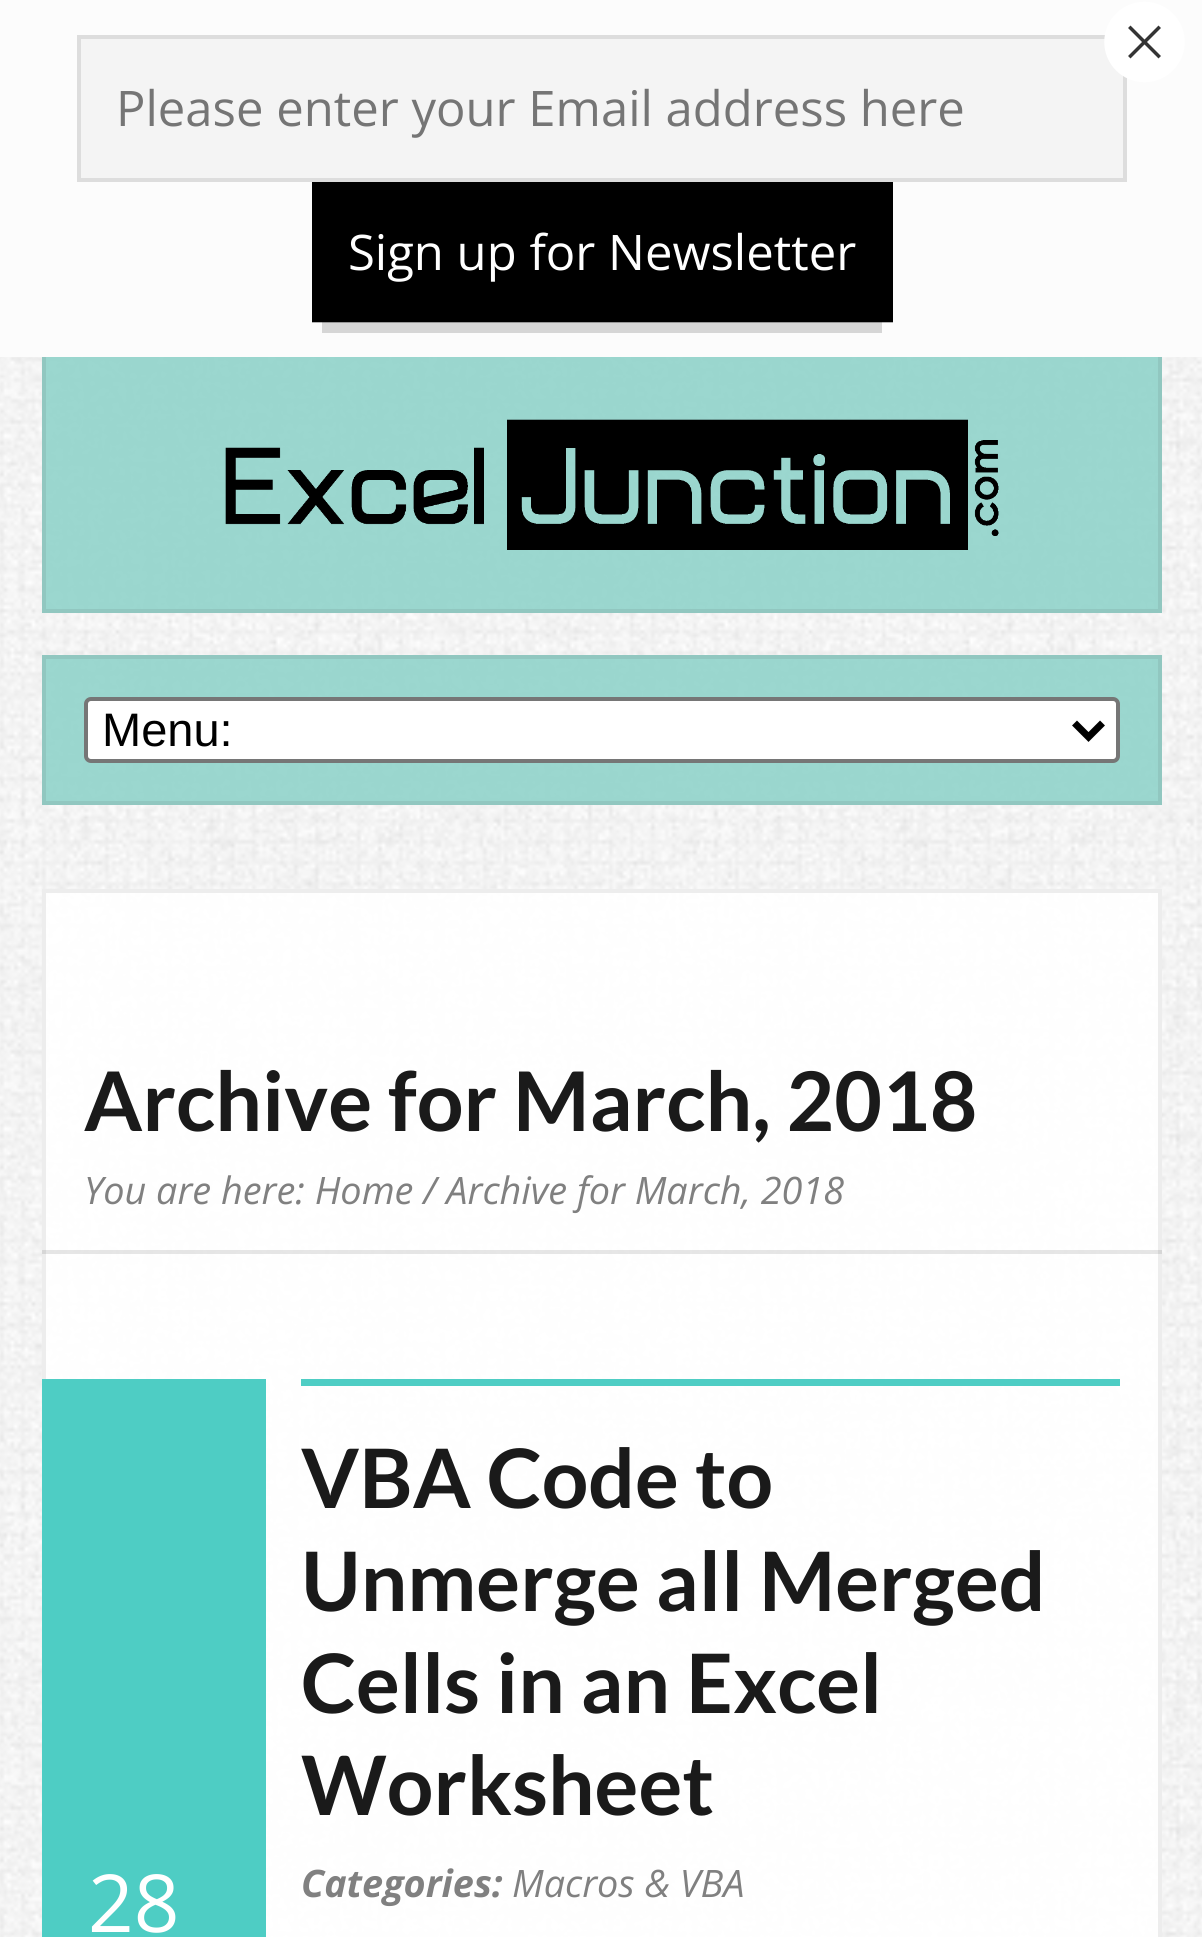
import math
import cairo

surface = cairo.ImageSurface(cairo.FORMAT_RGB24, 1202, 1937)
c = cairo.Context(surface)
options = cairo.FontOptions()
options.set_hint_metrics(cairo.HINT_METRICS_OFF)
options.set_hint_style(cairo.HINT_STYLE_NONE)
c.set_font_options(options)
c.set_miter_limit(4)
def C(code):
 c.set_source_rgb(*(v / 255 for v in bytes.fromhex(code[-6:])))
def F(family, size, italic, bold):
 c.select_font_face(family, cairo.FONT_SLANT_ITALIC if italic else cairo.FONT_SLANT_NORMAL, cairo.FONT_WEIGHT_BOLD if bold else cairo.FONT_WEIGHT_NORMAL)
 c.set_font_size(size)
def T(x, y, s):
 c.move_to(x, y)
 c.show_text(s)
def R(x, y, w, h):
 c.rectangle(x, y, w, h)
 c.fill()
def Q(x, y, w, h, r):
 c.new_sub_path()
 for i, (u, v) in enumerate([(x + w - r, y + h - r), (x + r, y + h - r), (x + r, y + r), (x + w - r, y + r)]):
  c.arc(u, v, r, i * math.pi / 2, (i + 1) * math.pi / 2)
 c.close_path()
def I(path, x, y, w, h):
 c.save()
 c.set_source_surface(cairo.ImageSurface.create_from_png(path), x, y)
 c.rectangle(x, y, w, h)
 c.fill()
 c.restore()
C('ffffff')
c.paint()
I('1.png',0,357,1202,1580)
c.set_source_rgba(0.592,0.835,0.804,0.95)
R(46,357,1112,252)
c.rectangle(44,265,1116,346)
C('91c7c0')
c.set_line_width(4)
c.stroke()
C('fcfcfc')
R(0,0,1202,357)
C('f4f4f4')
c.rectangle(79,37,1046,143)
c.fill_preserve()
C('dddddd')
c.stroke()
C('ffffff')
c.arc(1144.5,42,38.5,0,2 * math.pi)
c.fill_preserve()
c.set_line_width(3.5)
c.stroke()
c.new_path()
c.move_to(1158.5,28)
c.line_to(1130.5,56)
c.move_to(1158.5,56)
c.line_to(1130.5,28)
C('343434')
c.set_line_cap(cairo.LINE_CAP_SQUARE)
c.stroke()
F('Open Sans',49,0,0)
C('757575')
T(116,126,'Please enter your Email address here')
C('d6d6d6')
R(322,322,560,11)
C('000000')
R(312,182,581,140)
c.set_source_rgba(0,0,0,0.3)
R(312,322,581,1)
C('ffffff')
T(348,270,'Sign up for Newsletter')
I('2.png',225,419,774,131)
c.set_source_rgba(0.592,0.835,0.804,0.95)
c.rectangle(44,657,1116,146)
c.fill_preserve()
C('91c7c0')
c.set_line_width(4)
c.set_line_cap(cairo.LINE_CAP_BUTT)
c.stroke()
C('ffffff')
Q(86,699,1032,62,5)
c.fill_preserve()
C('767676')
c.stroke()
c.new_path()
c.move_to(1074.5,723)
c.line_to(1088.5,737)
c.line_to(1102.5,723)
C('000000')
c.set_line_width(7)
c.stroke()
F('Liberation Sans',47,0,0)
T(102,746,'Menu:')
c.set_source_rgba(1,1,1,0.95)
c.rectangle(44,891,1116,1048)
c.fill_preserve()
C('ededed')
c.set_line_width(4)
c.stroke()
F('Lato',82.25,0,1)
C('1a1a1a')
T(84,1131,'Archive for March, 2018')
F('Open Sans',37.8,1,0)
C('808080')
T(84,1204,'You are here: Home / Archive for March, 2018')
c.set_source_rgba(0,0,0,0.1)
R(42,1250,1120,4)
C('4ecdc4')
R(42,1379,224,558)
F('Open Sans',80,0,0)
C('ffffff')
T(88,1932,'28')
C('4ecdc4')
R(301,1379,819,7)
F('Lato',82,0,1)
C('1a1a1a')
T(301,1508,'VBA Code to')
T(301,1611,'Unmerge all Merged')
T(301,1713,'Cells in an Excel')
T(301,1815,'Worksheet')
F('Open Sans',37.8,1,1)
C('808080')
T(301,1897,'Categories:')
F('Open Sans',37.8,1,0)
T(512,1897,'Macros & VBA')
surface.write_to_png('o.png')
